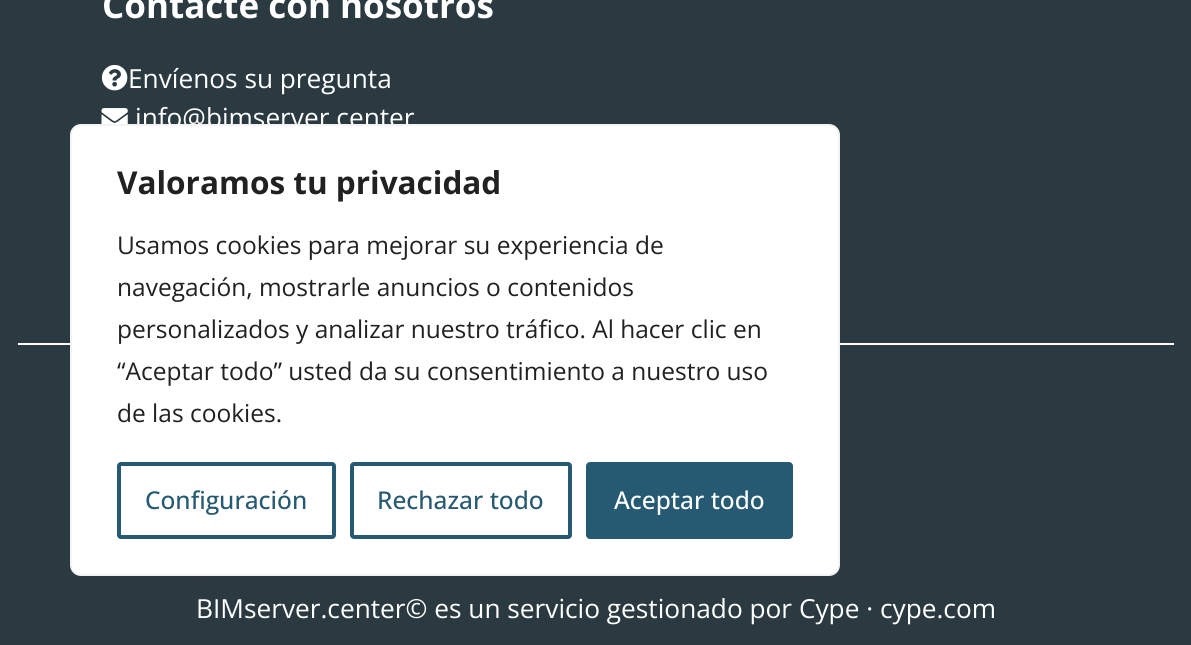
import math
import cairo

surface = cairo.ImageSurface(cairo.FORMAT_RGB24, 1191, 645)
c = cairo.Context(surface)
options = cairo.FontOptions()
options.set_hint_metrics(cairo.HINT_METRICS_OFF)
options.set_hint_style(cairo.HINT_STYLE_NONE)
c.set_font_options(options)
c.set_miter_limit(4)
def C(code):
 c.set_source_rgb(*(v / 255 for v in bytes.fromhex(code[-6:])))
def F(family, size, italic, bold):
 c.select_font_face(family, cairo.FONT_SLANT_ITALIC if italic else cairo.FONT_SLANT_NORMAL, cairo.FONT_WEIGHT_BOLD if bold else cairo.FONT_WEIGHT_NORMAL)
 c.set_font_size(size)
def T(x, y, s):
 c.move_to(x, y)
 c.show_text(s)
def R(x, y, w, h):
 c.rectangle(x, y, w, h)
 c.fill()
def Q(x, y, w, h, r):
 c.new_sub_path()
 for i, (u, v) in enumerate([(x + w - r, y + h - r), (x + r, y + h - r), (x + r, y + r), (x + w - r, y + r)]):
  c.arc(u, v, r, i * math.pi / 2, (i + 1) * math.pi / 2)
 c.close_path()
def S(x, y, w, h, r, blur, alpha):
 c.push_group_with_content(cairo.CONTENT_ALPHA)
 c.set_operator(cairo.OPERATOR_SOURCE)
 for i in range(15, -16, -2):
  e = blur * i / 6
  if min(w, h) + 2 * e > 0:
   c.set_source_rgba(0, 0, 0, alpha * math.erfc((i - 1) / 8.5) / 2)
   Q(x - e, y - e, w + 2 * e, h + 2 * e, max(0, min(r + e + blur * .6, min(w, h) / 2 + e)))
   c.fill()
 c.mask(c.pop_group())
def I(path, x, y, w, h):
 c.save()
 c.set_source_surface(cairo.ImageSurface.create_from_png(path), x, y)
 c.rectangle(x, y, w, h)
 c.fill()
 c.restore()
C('2a3a40')
c.paint()
F('Open Sans',35,0,1)
C('ffffff')
T(102,18,'Contacte con nosotros')
I('1.png',101,64,27,27)
F('Open Sans',26.25,0,0)
T(128,88,'Envíenos su pregunta')
I('2.png',101,108,27,16)
T(135,127,'info@bimserver.center')
R(18,343,1156,2)
T(196,618,'BIMserver.center© es un servicio gestionado por Cype · cype.com')
c.save()
Q(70,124,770,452,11)
c.clip()
C('acabab')
S(70,123,770,451,11,9,.3)
c.restore()
Q(71,125,768,450,10)
c.fill_preserve()
C('f4f4f4')
c.stroke()
F('Open Sans',31.5,0,1)
C('212121')
T(117,194,'Valoramos tu privacidad')
F('Open Sans',24.5,0,0)
T(117,254,'Usamos cookies para mejorar su experiencia de')
T(117,296,'navegación, mostrarle anuncios o contenidos')
T(117,338,'personalizados y analizar nuestro tráfico. Al hacer clic en')
T(117,380,'“Aceptar todo” usted da su consentimiento a nuestro uso')
T(117,422,'de las cookies.')
Q(119,464,215,73,2)
C('265972')
c.set_line_width(4)
c.stroke()
F('Open Sans Medium',24.5,0,0)
T(145,509,'Configuración')
Q(352,464,218,73,2)
c.stroke()
T(377,509,'Rechazar todo')
Q(588,464,203,73,2)
c.fill_preserve()
c.stroke()
C('ffffff')
T(614,509,'Aceptar todo')
surface.write_to_png('o.png')
